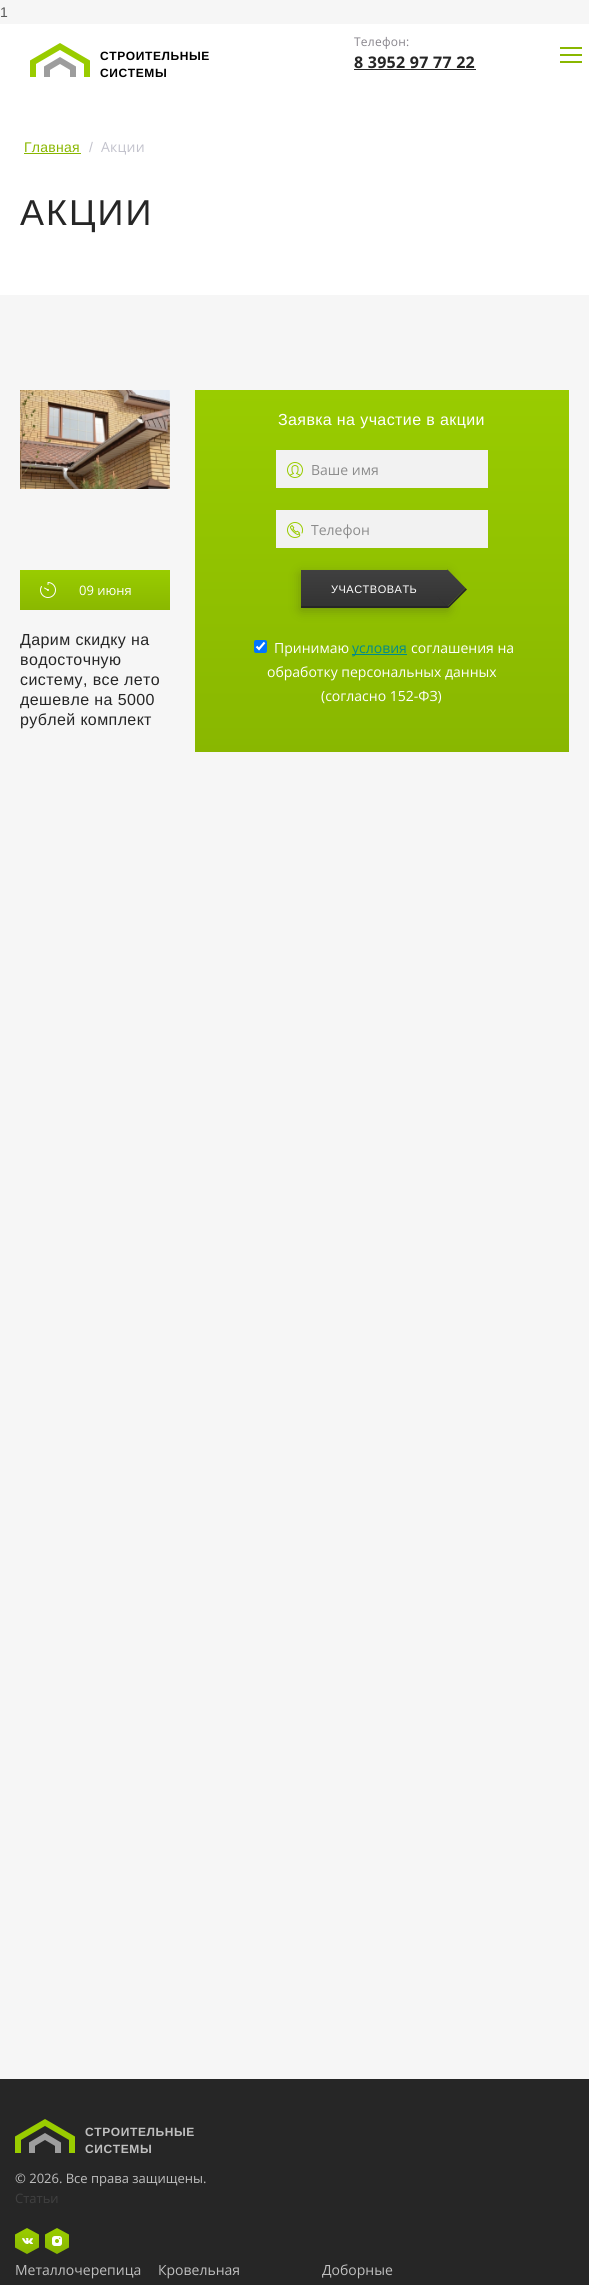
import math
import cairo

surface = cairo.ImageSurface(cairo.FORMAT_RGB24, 589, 2285)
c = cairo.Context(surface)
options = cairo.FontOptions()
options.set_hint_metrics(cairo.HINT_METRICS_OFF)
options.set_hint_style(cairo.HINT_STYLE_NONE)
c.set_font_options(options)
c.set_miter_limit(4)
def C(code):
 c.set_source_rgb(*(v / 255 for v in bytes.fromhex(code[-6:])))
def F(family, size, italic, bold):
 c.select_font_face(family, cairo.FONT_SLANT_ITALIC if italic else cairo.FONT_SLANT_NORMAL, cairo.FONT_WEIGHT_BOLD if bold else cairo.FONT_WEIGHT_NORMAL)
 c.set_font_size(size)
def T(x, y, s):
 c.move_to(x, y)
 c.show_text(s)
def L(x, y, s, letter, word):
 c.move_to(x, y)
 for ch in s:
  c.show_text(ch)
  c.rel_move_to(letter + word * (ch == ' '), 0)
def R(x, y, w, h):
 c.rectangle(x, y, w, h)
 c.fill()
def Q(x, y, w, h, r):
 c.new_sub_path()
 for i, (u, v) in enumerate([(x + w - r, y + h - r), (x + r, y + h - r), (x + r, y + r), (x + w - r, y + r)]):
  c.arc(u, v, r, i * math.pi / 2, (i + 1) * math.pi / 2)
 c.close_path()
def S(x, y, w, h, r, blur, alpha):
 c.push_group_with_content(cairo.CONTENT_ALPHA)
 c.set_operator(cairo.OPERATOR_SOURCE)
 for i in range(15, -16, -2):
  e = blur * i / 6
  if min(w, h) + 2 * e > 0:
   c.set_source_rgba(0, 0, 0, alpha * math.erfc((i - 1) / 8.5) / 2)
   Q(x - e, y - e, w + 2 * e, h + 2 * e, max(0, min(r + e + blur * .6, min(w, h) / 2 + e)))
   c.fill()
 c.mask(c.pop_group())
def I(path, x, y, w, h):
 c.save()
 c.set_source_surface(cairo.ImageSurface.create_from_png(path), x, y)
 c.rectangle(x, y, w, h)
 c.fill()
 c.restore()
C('f6f6f6')
c.paint()
F('Liberation Sans',14,0,0)
C('595959')
T(0,17,'1')
C('ffffff')
R(0,24,589,271)
I('1.png',30,43,60,34)
F('Liberation Sans',12,0,1)
C('000000')
L(100,60,'СТРОИТЕЛЬНЫЕ',.6,0)
L(100,77,'СИСТЕМЫ',.6,0)
F('Open Sans',12,0,0)
C('88858c')
L(354,46,'Телефон:',.25,0)
F('Open Sans',16,0,1)
C('262626')
L(354,68,'8 3952 97 77 22',.25,0)
R(354,69,122,1)
C('89b700')
R(560,47,22,2)
R(560,61,22,2)
R(560,54,22,2)
F('Liberation Sans',14,0,0)
L(24,152,'Главная',.25,0)
R(24,153,57,1)
C('c2c2cc')
L(89,152,'/',.25,0)
F('Open Sans',14,0,0)
L(101,152,'Акции',.25,0)
F('Liberation Sans',36,0,0)
C('262626')
L(20,225,'АКЦИИ',2,0)
I('2.png',20,390,150,99)
gradient = cairo.LinearGradient(95,570,95,610)
gradient.add_color_stop_rgba(0,0.6,0.8,0,1)
gradient.add_color_stop_rgba(1,0.541,0.722,0,1)
c.set_source(gradient)
R(20,570,150,40)
I('3.png',40,582,16,16)
F('Open Sans',13,0,0)
C('ffffff')
T(79,595,'09 июня')
F('Liberation Sans',16,0,0)
C('262626')
L(20,645,'Дарим скидку на',.4,0)
L(20,665,'водосточную',.4,0)
L(20,685,'систему, все лето',.4,0)
L(20,705,'дешевле на 5000',.4,0)
L(20,725,'рублей комплект',.4,0)
gradient = cairo.LinearGradient(382,390,382,752)
gradient.add_color_stop_rgba(0,0.6,0.8,0,1)
gradient.add_color_stop_rgba(1,0.537,0.718,0,1)
c.set_source(gradient)
R(195,390,374,362)
C('ffffff')
L(278,425,'Заявка на участие в акции',.4,0)
C('f2f2f2')
R(276,450,212,38)
I('4.png',287,462,16,16)
F('Open Sans',14,0,0)
C('8c8c8c')
T(311,475,'Ваше имя')
C('f2f2f2')
R(276,510,212,38)
I('5.png',287,522,16,16)
C('8c8c8c')
T(311,535,'Телефон')
C('262626')
R(301,606,147,2)
C('262626')
S(301,574,147,36,0,6,.3)
gradient = cairo.LinearGradient(375,570,375,606)
gradient.add_color_stop_rgba(0,0.251,0.251,0.251,1)
gradient.add_color_stop_rgba(1,0.2,0.2,0.2,1)
c.set_source(gradient)
R(301,570,146,36)
F('Liberation Sans',11,0,0)
C('ffffff')
L(331,593,'УЧАСТВОВАТЬ',.5,0)
C('262626')
c.new_path()
c.move_to(435,594)
c.line_to(448.5,608)
c.line_to(467,589.5)
c.line_to(465.5,588)
c.line_to(447.5,606.5)
c.close_path()
c.fill()
gradient = cairo.LinearGradient(447,570,447,606)
gradient.add_color_stop_rgba(0,0.251,0.251,0.251,1)
gradient.add_color_stop_rgba(1,0.2,0.2,0.2,1)
c.set_source(gradient)
c.new_path()
c.move_to(429,588)
c.line_to(447.5,569.5)
c.line_to(465.5,588)
c.line_to(447.5,606.5)
c.close_path()
c.fill()
C('0075ff')
Q(254,640,13,13,2)
c.fill()
c.new_path()
c.move_to(256.5,646.5)
c.line_to(259,649)
c.line_to(264.5,642.5)
C('ffffff')
c.set_line_width(2.1)
c.stroke()
F('Open Sans',14,0,0)
T(274,653,'Принимаю')
C('008b8b')
R(352,654,55,1)
T(352,653,'условия')
C('ffffff')
T(411,653,'соглашения на')
T(267,677,'обработку персональных данных')
T(321,701,'(согласно 152-ФЗ)')
C('262626')
R(0,2079,589,206)
I('6.png',15,2119,60,34)
F('Liberation Sans',12,0,1)
C('bfbfbf')
L(85,2136,'СТРОИТЕЛЬНЫЕ',.6,0)
L(85,2153,'СИСТЕМЫ',.6,0)
F('Open Sans',13,0,0)
T(15,2183,'© 2026. Все права защищены.')
C('404040')
T(15,2203,'Статьи')
I('7.png',15,2228,24,26)
I('8.png',22,2238,11,6)
I('7.png',45,2228,24,26)
I('9.png',52,2236,10,10)
F('Open Sans',14,0,0)
C('bfbfbf')
T(15,2275,'Металлочерепица')
T(158,2275,'Кровельная')
T(322,2275,'Доборные')
surface.write_to_png('o.png')
